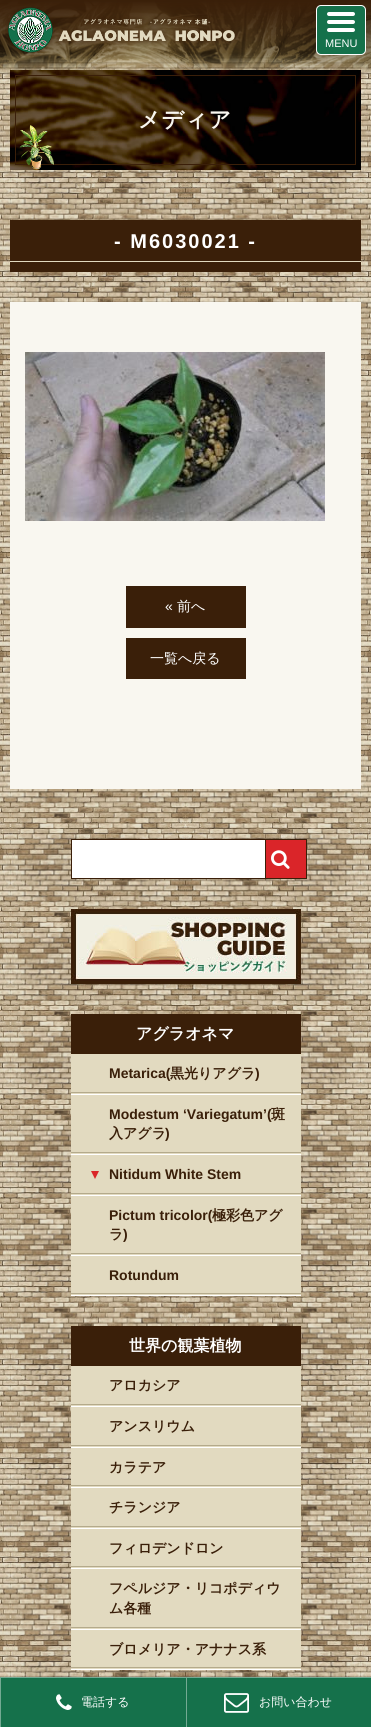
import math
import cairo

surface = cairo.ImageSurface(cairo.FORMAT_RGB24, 371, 1727)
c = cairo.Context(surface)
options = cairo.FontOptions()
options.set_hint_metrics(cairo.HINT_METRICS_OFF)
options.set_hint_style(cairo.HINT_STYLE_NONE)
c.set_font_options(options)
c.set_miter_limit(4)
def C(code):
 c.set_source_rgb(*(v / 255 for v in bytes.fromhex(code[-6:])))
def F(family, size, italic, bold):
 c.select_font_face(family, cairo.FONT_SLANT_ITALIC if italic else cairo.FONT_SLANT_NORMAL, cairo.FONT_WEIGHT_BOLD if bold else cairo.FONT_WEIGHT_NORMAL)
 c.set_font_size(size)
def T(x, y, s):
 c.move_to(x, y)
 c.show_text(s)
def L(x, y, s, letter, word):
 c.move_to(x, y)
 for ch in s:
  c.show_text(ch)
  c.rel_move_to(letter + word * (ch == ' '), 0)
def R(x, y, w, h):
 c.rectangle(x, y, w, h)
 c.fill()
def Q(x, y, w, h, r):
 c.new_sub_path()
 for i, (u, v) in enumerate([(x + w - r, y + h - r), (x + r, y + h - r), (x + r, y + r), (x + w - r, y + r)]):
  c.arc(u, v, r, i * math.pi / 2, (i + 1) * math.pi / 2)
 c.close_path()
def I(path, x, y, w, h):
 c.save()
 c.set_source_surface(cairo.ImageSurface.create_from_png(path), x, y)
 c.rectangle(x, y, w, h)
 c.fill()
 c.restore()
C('ffffff')
c.paint()
I('1.png',0,54,371,1623)
I('3.png',0,0,371,73)
gradient = cairo.LinearGradient(186,0,186,60)
gradient.add_color_stop_rgba(0,0.227,0.122,0.035,1)
gradient.add_color_stop_rgba(1,0.227,0.122,0.035,0)
c.set_source(gradient)
R(0,0,371,59)
C('15714b')
Q(316.5,5.5,49,49,4.5)
c.fill_preserve()
C('ffffff')
c.set_line_width(1)
c.stroke()
Q(327,12,28,4,2)
c.fill()
Q(327,20,28,4,2)
c.fill()
Q(327,28,28,4,2)
c.fill()
F('Liberation Sans',11,0,0)
T(325,47,'MENU')
I('2.png',5,7,233,50)
I('4.png',10,70,351,100)
c.rectangle(15.5,75.5,340,89)
C('3a1f09')
c.stroke()
F('WenQuanYi Zen Hei',22,0,1)
C('f9f7f0')
L(138,127,'メディア',1,0)
I('5.png',14,125,40,45)
C('3a1f09')
R(10,220,351,52)
F('Liberation Sans',20,0,1)
C('ffffff')
L(114,248,'- M6030021 -',2,0)
C('e2dac0')
R(10,261,351,1)
C('f9f7f0')
R(10,302,351,487)
I('6.png',25,352,300,169)
C('3a1f09')
R(126,586,120,42)
F('Liberation Sans',14,0,0)
C('ffffff')
T(165,611,'«')
F('WenQuanYi Zen Hei Medium',14,0,0)
T(177,611,'前へ')
C('3a1f09')
R(126,638,120,41)
C('ffffff')
T(150,663,'一覧へ戻る')
R(72,840,193,38)
C('3a1f09')
R(71,839,194,1)
R(71,878,194,1)
R(71,839,1,40)
C('da2529')
c.rectangle(265.5,839.5,41,39)
c.fill_preserve()
C('3a1f09')
c.stroke()
I('7.png',271,850,19,19)
I('8.png',71,909,230,75)
R(71,1014,230,40)
F('WenQuanYi Zen Hei',16,0,1)
C('ffffff')
T(136,1039,'アグラオネマ')
C('e2dac0')
R(71,1054,230,40)
C('ffffff')
R(71,1094,230,1)
F('Liberation Sans',14,0,1)
C('3a1f09')
T(109,1078,'Metarica(')
F('WenQuanYi Zen Hei',14,0,1)
T(170,1078,'黒光りアグラ')
F('Liberation Sans',14,0,1)
T(255,1078,')')
C('b4aa8b')
R(71,1092,230,1)
C('e2dac0')
R(71,1095,230,59)
C('ffffff')
R(71,1154,230,1)
C('3a1f09')
T(109,1119,'Modestum ‘Variegatum’(')
F('WenQuanYi Zen Hei',14,0,1)
T(271,1119,'斑')
T(109,1138,'入アグラ')
F('Liberation Sans',14,0,1)
T(165,1138,')')
C('b4aa8b')
R(71,1152,230,1)
C('e2dac0')
R(71,1155,230,40)
C('ffffff')
R(71,1195,230,1)
C('da2528')
c.new_path()
c.move_to(91,1171)
c.line_to(99,1171)
c.line_to(95,1179)
c.close_path()
c.fill()
C('3a1f09')
T(109,1179,'Nitidum White Stem')
C('b4aa8b')
R(71,1193,230,1)
C('e2dac0')
R(71,1196,230,59)
C('ffffff')
R(71,1255,230,1)
C('3a1f09')
T(109,1220,'Pictum tricolor(')
F('WenQuanYi Zen Hei',14,0,1)
T(212,1220,'極彩色アグ')
T(109,1239,'ラ')
F('Liberation Sans',14,0,1)
T(123,1239,')')
C('b4aa8b')
R(71,1253,230,1)
C('e2dac0')
R(71,1256,230,39)
C('ffffff')
R(71,1295,230,1)
C('3a1f09')
T(109,1280,'Rotundum')
C('b4aa8b')
R(71,1293,230,1)
C('3a1f09')
R(71,1326,230,40)
F('WenQuanYi Zen Hei',16,0,1)
C('ffffff')
T(129,1351,'世界の観葉植物')
C('e2dac0')
R(71,1366,230,40)
C('ffffff')
R(71,1406,230,1)
F('WenQuanYi Zen Hei',14,0,1)
C('3a1f09')
T(109,1390,'アロカシア')
C('b4aa8b')
R(71,1404,230,1)
C('e2dac0')
R(71,1407,230,40)
C('ffffff')
R(71,1447,230,1)
C('3a1f09')
T(109,1431,'アンスリウム')
C('b4aa8b')
R(71,1445,230,1)
C('e2dac0')
R(71,1448,230,39)
C('ffffff')
R(71,1487,230,1)
C('3a1f09')
T(109,1472,'カラテア')
C('b4aa8b')
R(71,1485,230,1)
C('e2dac0')
R(71,1488,230,40)
C('ffffff')
R(71,1528,230,1)
C('3a1f09')
T(109,1512,'チランジア')
C('b4aa8b')
R(71,1526,230,1)
C('e2dac0')
R(71,1529,230,39)
C('ffffff')
R(71,1568,230,1)
C('3a1f09')
T(109,1553,'フィロデンドロン')
C('b4aa8b')
R(71,1566,230,1)
C('e2dac0')
R(71,1569,230,60)
C('ffffff')
R(71,1629,230,1)
C('3a1f09')
T(109,1593,'フペルジア・リコポディウ')
T(109,1613,'ム各種')
C('b4aa8b')
R(71,1627,230,1)
C('e2dac0')
R(71,1630,230,39)
C('ffffff')
R(71,1669,230,1)
C('3a1f09')
T(109,1654,'ブロメリア・アナナス系')
C('b4aa8b')
R(71,1667,230,1)
C('15714b')
R(1,1678,370,49)
c.save()
c.rectangle(0,1677,186,50)
c.clip()
C('73aa93')
c.set_fill_rule(cairo.FILL_RULE_EVEN_ODD)
c.new_path()
c.move_to(-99,1578)
c.line_to(285,1578)
c.line_to(285,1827)
c.line_to(-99,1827)
c.close_path()
c.move_to(1,1678)
c.line_to(187,1678)
c.line_to(187,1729)
c.line_to(1,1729)
c.close_path()
c.fill()
c.restore()
I('9.png',56,1694,16,16)
F('WenQuanYi Zen Hei Medium',12,0,0)
C('ffffff')
T(81,1706,'電話する')
c.save()
c.rectangle(186,1677,185,50)
c.clip()
C('73aa93')
c.set_fill_rule(cairo.FILL_RULE_EVEN_ODD)
c.new_path()
c.move_to(87,1578)
c.line_to(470,1578)
c.line_to(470,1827)
c.line_to(87,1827)
c.close_path()
c.move_to(187,1678)
c.line_to(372,1678)
c.line_to(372,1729)
c.line_to(187,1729)
c.close_path()
c.fill()
c.restore()
I('10.png',224,1693,25,20)
T(259,1706,'お問い合わせ')
surface.write_to_png('o.png')
